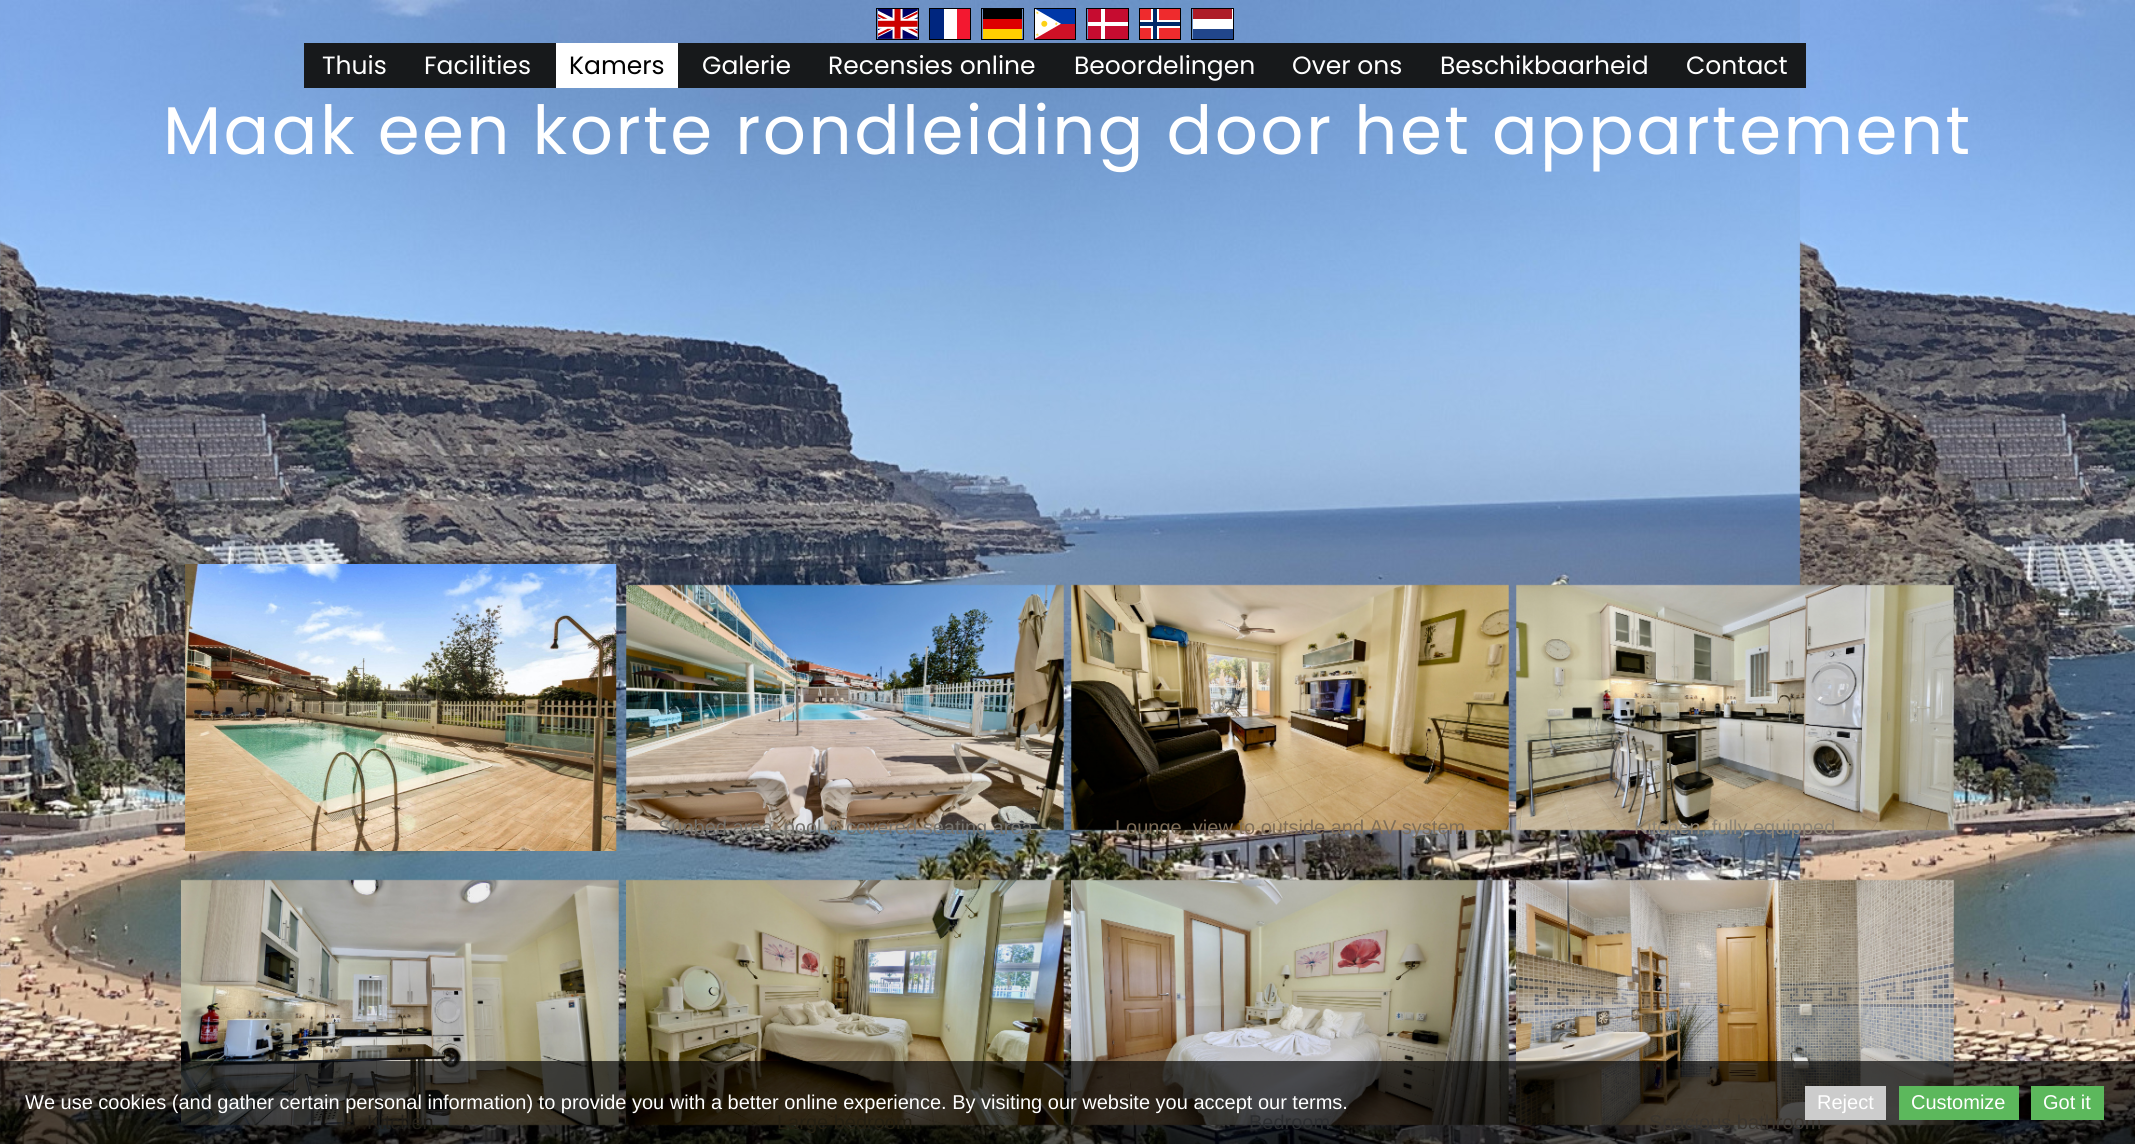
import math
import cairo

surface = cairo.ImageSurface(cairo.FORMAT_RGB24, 2135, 1144)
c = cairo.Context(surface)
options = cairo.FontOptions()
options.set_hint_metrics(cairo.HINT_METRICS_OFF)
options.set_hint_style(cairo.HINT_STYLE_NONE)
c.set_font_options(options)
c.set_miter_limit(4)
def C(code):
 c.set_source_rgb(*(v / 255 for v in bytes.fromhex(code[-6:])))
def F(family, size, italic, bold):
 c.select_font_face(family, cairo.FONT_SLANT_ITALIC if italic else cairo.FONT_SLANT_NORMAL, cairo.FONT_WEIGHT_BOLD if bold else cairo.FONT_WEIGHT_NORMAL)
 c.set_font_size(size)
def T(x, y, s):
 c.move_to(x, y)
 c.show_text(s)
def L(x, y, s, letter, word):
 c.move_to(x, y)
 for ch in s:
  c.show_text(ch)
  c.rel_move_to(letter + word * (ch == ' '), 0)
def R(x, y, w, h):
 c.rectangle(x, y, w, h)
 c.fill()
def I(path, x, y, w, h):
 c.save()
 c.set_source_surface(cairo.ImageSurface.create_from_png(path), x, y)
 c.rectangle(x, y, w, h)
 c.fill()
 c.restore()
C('ffffff')
c.paint()
I('1.png',0,0,2135,1144)
I('2.png',878,9,40,30)
c.rectangle(876.5,8.5,42,31)
C('000000')
c.set_line_width(1)
c.stroke()
C('ffffff')
R(944,9,13,30)
C('00267f')
R(930,9,14,30)
C('f31830')
R(957,9,13,30)
c.rectangle(929.5,8.5,41,31)
C('000000')
c.stroke()
C('ffce00')
R(983,29,39,10)
C('000000')
R(983,9,39,10)
C('dd0000')
R(983,19,39,10)
c.rectangle(981.5,8.5,42,31)
C('000000')
c.stroke()
I('3.png',1035,9,40,30)
c.rectangle(1034.5,8.5,41,31)
c.stroke()
C('c60c30')
R(1088,9,40,30)
C('ffffff')
R(1101,9,4,30)
R(1088,22,40,4)
c.rectangle(1086.5,8.5,42,31)
C('000000')
c.stroke()
C('ef2b2d')
R(1140,9,40,30)
C('ffffff')
R(1151,9,8,30)
R(1140,20,40,8)
C('002868')
R(1153,9,4,30)
R(1140,22,40,4)
c.rectangle(1139.5,8.5,41,31)
C('000000')
c.stroke()
C('ffffff')
R(1193,9,40,20)
C('21468b')
R(1193,29,40,10)
C('ae1c28')
R(1193,9,39,10)
c.rectangle(1191.5,8.5,42,31)
C('000000')
c.stroke()
C('17191b')
R(304,43,1502,45)
F('Poppins',25,0,0)
C('ffffff')
T(322,74,'Thuis')
T(424,74,'Facilities')
R(556,43,122,45)
C('000000')
T(569,74,'Kamers')
C('ffffff')
T(702,74,'Galerie')
T(828,74,'Recensies online')
T(1074,74,'Beoordelingen')
T(1292,74,'Over ons')
T(1440,74,'Beschikbaarheid')
T(1686,74,'Contact')
F('Poppins',67.5,0,0)
L(163,154,'Maak een korte rondleiding door het appartement',2.5,0)
I('4.png',185,564,432,287)
I('5.png',626,584,438,247)
F('Liberation Sans',20,0,0)
C('75736e')
T(658,834,'Sunbed area, pool & covered seating area')
I('6.png',1071,584,438,247)
C('7f6e58')
T(1115,834,'Lounge, view to outside and AV system')
I('7.png',1516,584,438,247)
C('8c8476')
T(1634,834,'Kitchen, fully equipped')
I('8.png',181,879,438,247)
C('605848')
T(367,1129,'Kitchen')
I('9.png',626,879,438,247)
C('695a35')
T(777,1129,'Large bedroom')
I('10.png',1071,879,438,247)
C('7f838c')
T(1249,1129,'Bedroom')
I('11.png',1516,879,438,247)
C('ab9c89')
T(1649,1129,'Spacious bathroom')
c.set_source_rgba(0,0,0,0.66)
R(0,1061,2135,83)
C('ffffff')
T(25,1109,'We use cookies (and gather certain personal information) to provide you with a better online experience. By visiting our website you accept our terms.')
C('cccccc')
R(1805,1086,81,34)
C('ffffff')
T(1817,1109,'Reject')
C('5cb85c')
R(1899,1086,120,34)
C('ffffff')
T(1911,1109,'Customize')
C('5cb85c')
R(2031,1086,73,34)
C('ffffff')
T(2043,1109,'Got it')
surface.write_to_png('o.png')
